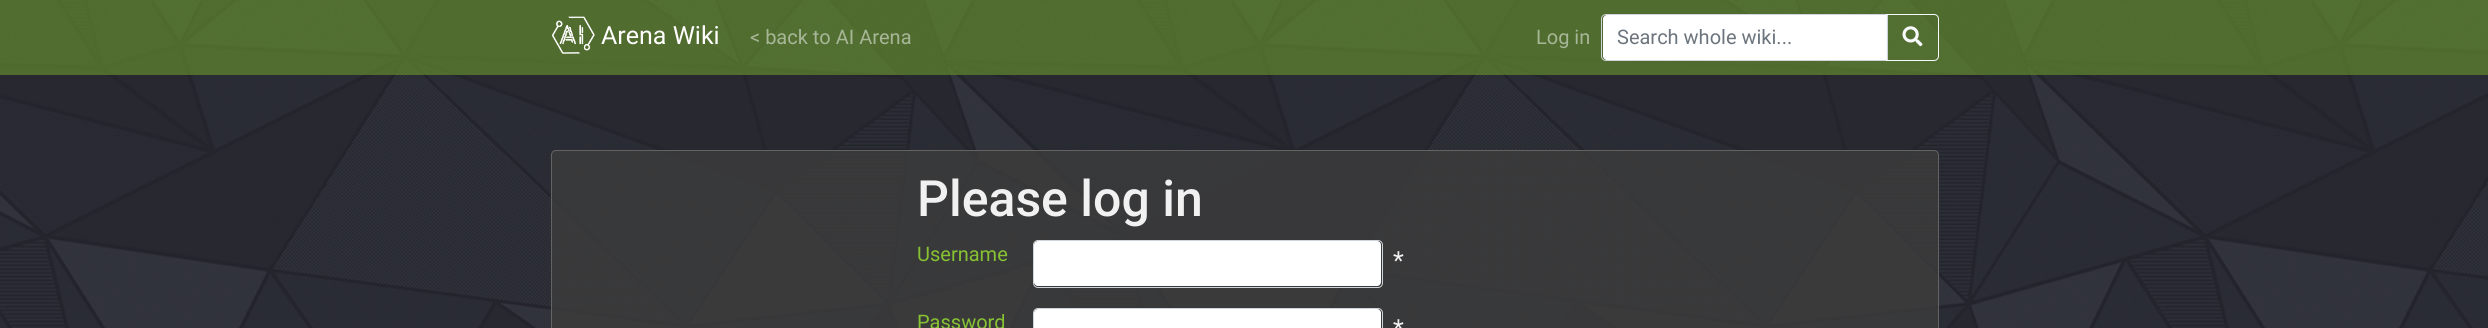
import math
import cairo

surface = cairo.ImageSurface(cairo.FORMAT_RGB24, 2488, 328)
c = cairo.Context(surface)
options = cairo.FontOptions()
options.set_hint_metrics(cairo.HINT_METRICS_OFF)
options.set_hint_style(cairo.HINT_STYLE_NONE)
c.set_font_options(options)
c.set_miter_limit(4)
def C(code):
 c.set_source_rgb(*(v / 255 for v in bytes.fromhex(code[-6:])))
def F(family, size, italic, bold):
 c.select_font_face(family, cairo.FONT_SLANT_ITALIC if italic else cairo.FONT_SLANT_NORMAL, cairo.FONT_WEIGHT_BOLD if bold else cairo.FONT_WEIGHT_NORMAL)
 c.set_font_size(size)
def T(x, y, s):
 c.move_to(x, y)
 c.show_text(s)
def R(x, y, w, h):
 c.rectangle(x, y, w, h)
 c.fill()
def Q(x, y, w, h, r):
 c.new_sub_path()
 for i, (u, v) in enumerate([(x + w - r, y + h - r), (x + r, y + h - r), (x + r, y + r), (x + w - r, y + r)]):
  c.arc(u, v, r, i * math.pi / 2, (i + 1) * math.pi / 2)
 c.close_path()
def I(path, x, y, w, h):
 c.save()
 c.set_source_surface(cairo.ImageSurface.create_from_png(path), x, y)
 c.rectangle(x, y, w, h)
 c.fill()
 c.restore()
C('ffffff')
c.paint()
I('1.png',0,0,2488,328)
c.set_source_rgba(0.38,0.537,0.184,0.7)
R(0,0,2488,75)
I('2.png',552,16,43,38)
F('Roboto',25,0,0)
C('ffffff')
T(601,44,'Arena Wiki')
F('Roboto',20,0,0)
C('a8b698')
T(750,44,'< back to AI Arena')
T(1536,44,'Log in')
C('ffffff')
c.new_path()
c.move_to(1607,15)
c.line_to(1886,15)
c.line_to(1886,60)
c.line_to(1607,60)
c.curve_to(1605,60,1603,58,1603,56)
c.line_to(1603,19)
c.curve_to(1603,17,1605,15,1607,15)
c.close_path()
c.fill()
c.new_path()
c.move_to(1606,14.5)
c.line_to(1887.5,14.5)
c.line_to(1887.5,60.5)
c.line_to(1606,60.5)
c.curve_to(1603.5,60.5,1601.5,58.5,1601.5,56)
c.line_to(1601.5,19)
c.curve_to(1601.5,16.5,1603.5,14.5,1606,14.5)
c.close_path()
C('ced4da')
c.set_line_width(1)
c.stroke()
C('6c757d')
T(1617,44,'Search whole wiki...')
c.new_path()
c.move_to(1886.5,14.5)
c.line_to(1934,14.5)
c.curve_to(1936.5,14.5,1938.5,16.5,1938.5,19)
c.line_to(1938.5,56)
c.curve_to(1938.5,58.5,1936.5,60.5,1934,60.5)
c.line_to(1886.5,60.5)
c.close_path()
C('f8f9fa')
c.stroke()
I('3.png',1902,26,21,21)
c.set_source_rgba(0.235,0.235,0.235,0.84)
Q(551,150,1388,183,5)
c.fill()
Q(551.5,150.5,1387,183,4.5)
c.set_source_rgba(0.859,0.859,0.859,0.26)
c.stroke()
F('Roboto Medium',50,0,0)
C('f1f1f1')
T(917,216,'Please log in')
F('Roboto',20,0,0)
C('86c232')
T(917,261,'Username')
C('ffffff')
Q(1034,241,347,45,4)
c.fill()
Q(1033.5,240.5,349,47,4.5)
C('ced4da')
c.stroke()
F('Roboto',25,0,0)
C('f1f1f1')
T(1393,269,'*')
F('Roboto',20,0,0)
C('86c232')
T(917,329,'Password')
C('ffffff')
Q(1034,309,347,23,4)
c.fill()
Q(1033.5,308.5,349,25,4.5)
C('ced4da')
c.stroke()
F('Roboto',25,0,0)
C('f1f1f1')
T(1393,337,'*')
surface.write_to_png('o.png')
